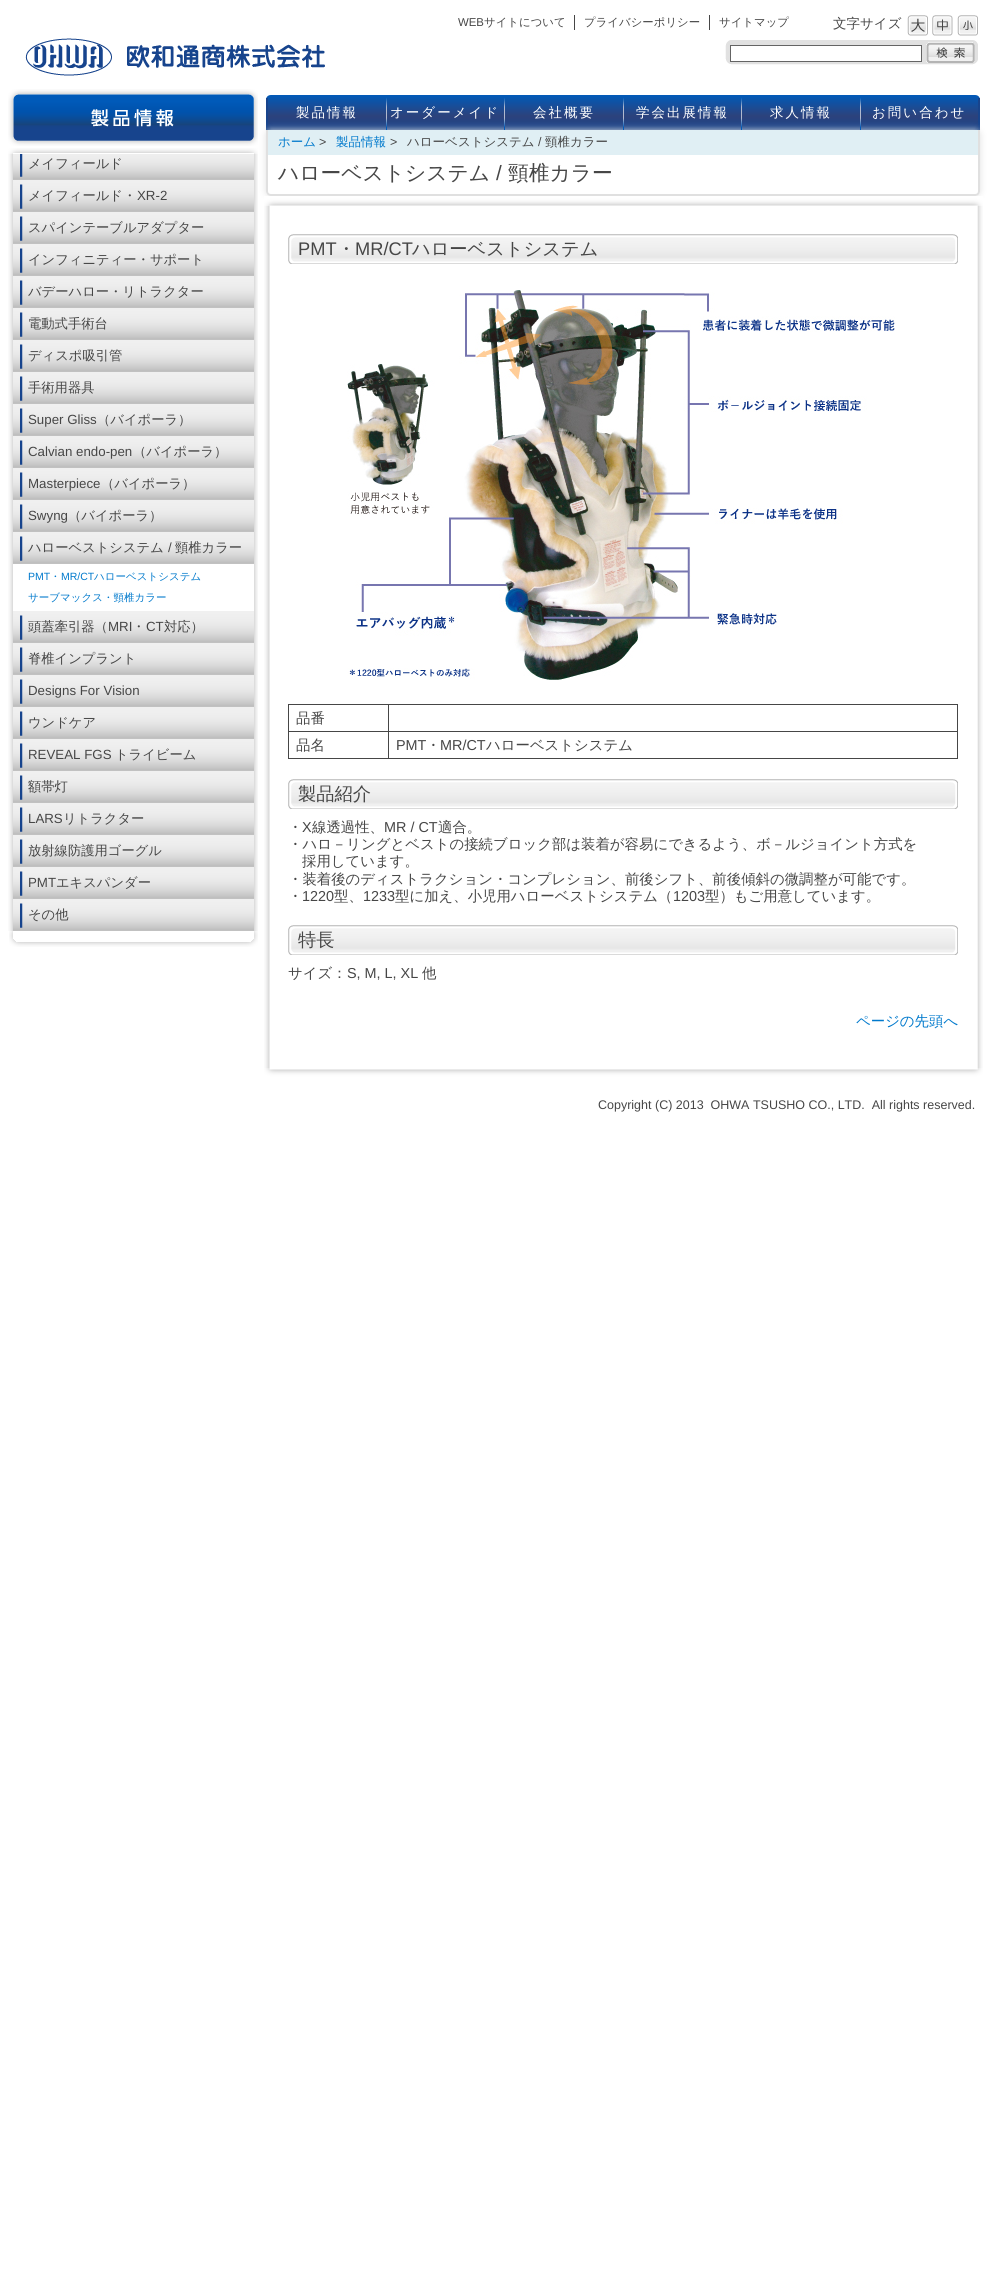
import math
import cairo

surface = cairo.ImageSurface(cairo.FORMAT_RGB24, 996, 2271)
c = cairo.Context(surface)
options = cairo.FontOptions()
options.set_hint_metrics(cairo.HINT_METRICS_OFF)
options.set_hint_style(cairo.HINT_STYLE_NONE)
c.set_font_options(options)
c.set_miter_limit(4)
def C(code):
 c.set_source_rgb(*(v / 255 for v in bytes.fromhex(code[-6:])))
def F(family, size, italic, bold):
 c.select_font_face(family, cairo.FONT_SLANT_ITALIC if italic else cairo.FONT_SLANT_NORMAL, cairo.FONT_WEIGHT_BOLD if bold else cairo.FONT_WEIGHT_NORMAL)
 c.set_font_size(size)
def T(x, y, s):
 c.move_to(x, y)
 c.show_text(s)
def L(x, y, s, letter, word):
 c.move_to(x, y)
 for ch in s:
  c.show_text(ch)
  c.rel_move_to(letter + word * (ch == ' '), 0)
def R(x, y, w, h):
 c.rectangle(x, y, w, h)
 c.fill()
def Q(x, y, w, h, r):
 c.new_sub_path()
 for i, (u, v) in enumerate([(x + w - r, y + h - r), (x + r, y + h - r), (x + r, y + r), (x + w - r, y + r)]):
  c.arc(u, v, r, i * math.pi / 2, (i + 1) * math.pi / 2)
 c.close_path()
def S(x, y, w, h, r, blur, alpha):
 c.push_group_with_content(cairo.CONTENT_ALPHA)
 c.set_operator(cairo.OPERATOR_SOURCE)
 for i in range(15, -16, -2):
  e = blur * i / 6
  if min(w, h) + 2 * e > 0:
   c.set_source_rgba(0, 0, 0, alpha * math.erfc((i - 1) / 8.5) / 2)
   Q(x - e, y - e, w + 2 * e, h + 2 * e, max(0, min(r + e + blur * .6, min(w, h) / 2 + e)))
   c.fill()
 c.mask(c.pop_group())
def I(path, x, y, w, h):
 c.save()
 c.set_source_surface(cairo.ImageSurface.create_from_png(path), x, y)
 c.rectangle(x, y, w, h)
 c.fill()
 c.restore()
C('ffffff')
c.paint()
I('1.png',25,38,300,38)
F('Liberation Sans',11.4,0,0)
C('464646')
T(458,26,'WEB')
F('WenQuanYi Zen Hei Medium',11.4,0,0)
T(484,26,'サイトについて')
R(574,15,1,15)
T(584,26,'プライバシーポリシー')
R(709,15,1,15)
T(719,26,'サイトマップ')
F('WenQuanYi Zen Hei Medium',13.5,0,0)
T(833,28,'文字サイズ')
I('2.png',907,15,21,21)
I('3.png',932,15,21,21)
I('4.png',957,15,21,21)
I('5.png',725,40,253,25)
C('ffffff')
c.rectangle(730.5,45.5,191,16)
c.fill_preserve()
C('646464')
c.set_line_width(1)
c.stroke()
I('6.png',926,42,49,21)
gradient = cairo.LinearGradient(623,95,623,130)
gradient.add_color_stop_rgba(0,0.004,0.353,0.722,1)
gradient.add_color_stop_rgba(.6,0.173,0.259,0.486,1)
gradient.add_color_stop_rgba(1,0.094,0.267,0.549,1)
c.set_source(gradient)
c.new_path()
c.move_to(271,95)
c.line_to(975,95)
c.curve_to(978,95,980,97,980,100)
c.line_to(980,130)
c.line_to(266,130)
c.line_to(266,100)
c.curve_to(266,97,268,95,271,95)
c.close_path()
c.fill()
C('18448c')
R(978,98,2,32)
R(266,98,2,32)
c.save()
c.set_fill_rule(cairo.FILL_RULE_EVEN_ODD)
c.new_path()
c.move_to(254,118)
c.line_to(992,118)
c.line_to(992,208)
c.line_to(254,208)
c.close_path()
c.move_to(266,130)
c.line_to(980,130)
c.line_to(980,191)
c.curve_to(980,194,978,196,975,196)
c.line_to(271,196)
c.curve_to(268,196,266,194,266,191)
c.close_path()
c.clip()
C('e0e0e0')
S(266,130,714,66,5,3.5,1)
c.restore()
I('7.png',386,97,1,33)
C('ffffff')
L(296,117,'製品情報',2,0)
I('8.png',504,97,1,33)
L(390,117,'オーダーメイド',2,0)
I('9.png',623,97,1,33)
L(533,117,'会社概要',2,0)
I('10.png',741,97,1,33)
L(636,117,'学会出展情報',2,0)
I('8.png',860,97,1,33)
L(770,117,'求人情報',2,0)
L(872,117,'お問い合わせ',2,0)
C('e0e0e0')
c.set_fill_rule(cairo.FILL_RULE_EVEN_ODD)
c.new_path()
c.move_to(266,130)
c.line_to(980,130)
c.line_to(980,191)
c.curve_to(980,194,978,196,975,196)
c.line_to(271,196)
c.curve_to(268,196,266,194,266,191)
c.close_path()
c.move_to(268,130)
c.line_to(978,130)
c.line_to(978,191)
c.curve_to(978,193,977,194,975,194)
c.line_to(271,194)
c.curve_to(269,194,268,193,268,191)
c.close_path()
c.fill()
C('e0eff4')
R(268,130,710,25)
F('WenQuanYi Zen Hei Medium',12.5,0,0)
C('0079cc')
T(278,146,'ホーム')
F('Liberation Sans',12.5,0,0)
C('464646')
T(319,146,'>')
F('WenQuanYi Zen Hei Medium',12.5,0,0)
C('0079cc')
T(336,146,'製品情報')
F('Liberation Sans',12.5,0,0)
C('464646')
T(390,146,'>')
F('WenQuanYi Zen Hei Medium',12.5,0,0)
T(407,146,'ハローベストシステム')
F('Liberation Sans',12.5,0,0)
T(538,146,'/')
F('WenQuanYi Zen Hei Medium',12.5,0,0)
T(545,146,'頸椎カラー')
F('WenQuanYi Zen Hei Medium',20.75,0,0)
T(278,180,'ハローベストシステム')
F('Liberation Sans',20.75,0,0)
T(496,180,'/')
F('WenQuanYi Zen Hei Medium',20.75,0,0)
T(508,180,'頸椎カラー')
I('11.png',8,89,250,57)
I('12.png',8,148,250,6)
I('13.png',8,154,250,777)
I('14.png',13,154,241,26)
F('WenQuanYi Zen Hei Medium',13.3,0,0)
T(28,168,'メイフィールド')
I('15.png',13,180,241,32)
T(28,200,'メイフィールド・')
F('Liberation Sans',13.3,0,0)
T(137,200,'XR-2')
I('15.png',13,212,241,32)
F('WenQuanYi Zen Hei Medium',13.3,0,0)
T(28,232,'スパインテーブルアダプター')
I('15.png',13,244,241,32)
T(28,264,'インフィニティー・サポート')
I('15.png',13,276,241,32)
T(28,296,'バデーハロー・リトラクター')
I('15.png',13,308,241,32)
T(28,328,'電動式手術台')
I('15.png',13,340,241,32)
T(28,360,'ディスポ吸引管')
I('15.png',13,372,241,32)
T(28,392,'手術用器具')
I('15.png',13,404,241,32)
F('Liberation Sans',13.3,0,0)
T(28,424,'Super Gliss')
F('WenQuanYi Zen Hei Medium',13.3,0,0)
T(97,424,'（バイポーラ）')
I('15.png',13,436,241,32)
F('Liberation Sans',13.3,0,0)
T(28,456,'Calvian endo-pen')
F('WenQuanYi Zen Hei Medium',13.3,0,0)
T(133,456,'（バイポーラ）')
I('15.png',13,468,241,32)
F('Liberation Sans',13.3,0,0)
T(28,488,'Masterpiece')
F('WenQuanYi Zen Hei Medium',13.3,0,0)
T(101,488,'（バイポーラ）')
I('15.png',13,500,241,32)
F('Liberation Sans',13.3,0,0)
T(28,520,'Swyng')
F('WenQuanYi Zen Hei Medium',13.3,0,0)
T(68,520,'（バイポーラ）')
I('15.png',13,532,241,32)
T(28,552,'ハローベストシステム')
F('Liberation Sans',13.3,0,0)
T(168,552,'/')
F('WenQuanYi Zen Hei Medium',13.3,0,0)
T(175,552,'頸椎カラー')
F('Liberation Sans',10.5,0,0)
C('0079cc')
T(28,580,'PMT')
F('WenQuanYi Zen Hei Medium',10.5,0,0)
T(50,580,'・')
F('Liberation Sans',10.5,0,0)
T(61,580,'MR/CT')
F('WenQuanYi Zen Hei Medium',10.5,0,0)
T(94,580,'ハローベストシステム')
T(28,601,'サーブマックス・頸椎カラー')
I('15.png',13,611,241,32)
F('WenQuanYi Zen Hei Medium',13.3,0,0)
C('464646')
T(28,631,'頭蓋牽引器（')
F('Liberation Sans',13.3,0,0)
T(108,631,'MRI')
F('WenQuanYi Zen Hei Medium',13.3,0,0)
T(132,631,'・')
F('Liberation Sans',13.3,0,0)
T(146,631,'CT')
F('WenQuanYi Zen Hei Medium',13.3,0,0)
T(164,631,'対応）')
I('15.png',13,643,241,32)
T(28,663,'脊椎インプラント')
I('15.png',13,675,241,32)
F('Liberation Sans',13.3,0,0)
T(28,695,'Designs For Vision')
I('15.png',13,707,241,32)
F('WenQuanYi Zen Hei Medium',13.3,0,0)
T(28,727,'ウンドケア')
I('15.png',13,739,241,32)
F('Liberation Sans',13.3,0,0)
T(28,759,'REVEAL FGS')
F('WenQuanYi Zen Hei Medium',13.3,0,0)
T(115,759,'トライビーム')
I('15.png',13,771,241,32)
T(28,791,'額帯灯')
I('15.png',13,803,241,32)
F('Liberation Sans',13.3,0,0)
T(28,823,'LARS')
F('WenQuanYi Zen Hei Medium',13.3,0,0)
T(63,823,'リトラクター')
I('15.png',13,835,241,32)
T(28,855,'放射線防護用ゴーグル')
I('15.png',13,867,241,32)
F('Liberation Sans',13.3,0,0)
T(28,887,'PMT')
F('WenQuanYi Zen Hei Medium',13.3,0,0)
T(56,887,'エキスパンダー')
I('15.png',13,899,241,32)
T(28,919,'その他')
I('16.png',9,931,249,16)
I('17.png',264,206,719,862)
I('18.png',264,196,719,10)
I('19.png',288,234,670,30)
F('Liberation Sans',18.25,0,0)
T(298,255,'PMT')
F('WenQuanYi Zen Hei Medium',18.25,0,0)
T(337,255,'・')
F('Liberation Sans',18.25,0,0)
T(355,255,'MR/CT')
F('WenQuanYi Zen Hei Medium',18.25,0,0)
T(412,255,'ハローベストシステム')
I('20.png',347,290,548,390)
R(288,704,670,1)
R(288,704,1,55)
R(957,704,1,55)
R(388,758,570,1)
R(388,731,1,28)
R(388,731,570,1)
R(388,704,1,28)
R(288,731,101,1)
F('WenQuanYi Zen Hei Medium',14.4,0,0)
T(296,723,'品番')
R(288,758,101,1)
T(296,750,'品名')
F('Liberation Sans',14.4,0,0)
T(396,750,'PMT')
F('WenQuanYi Zen Hei Medium',14.4,0,0)
T(426,750,'・')
F('Liberation Sans',14.4,0,0)
T(440,750,'MR/CT')
F('WenQuanYi Zen Hei Medium',14.4,0,0)
T(486,750,'ハローベストシステム')
I('19.png',288,779,670,30)
F('WenQuanYi Zen Hei Medium',18.25,0,0)
T(298,800,'製品紹介')
F('WenQuanYi Zen Hei Medium',14.4,0,0)
T(288,832,'・')
F('Liberation Sans',14.4,0,0)
T(302,832,'X')
F('WenQuanYi Zen Hei Medium',14.4,0,0)
T(312,832,'線透過性、')
F('Liberation Sans',14.4,0,0)
T(384,832,'MR / CT')
F('WenQuanYi Zen Hei Medium',14.4,0,0)
T(438,832,'適合。')
T(288,849,'・ハロ－リングとベストの接続ブロック部は装着が容易にできるよう、ボ－ルジョイント方式を')
T(302,866,'採用しています。')
T(288,884,'・装着後のディストラクション・コンプレション、前後シフト、前後傾斜の微調整が可能です。')
T(288,901,'・')
F('Liberation Sans',14.4,0,0)
T(302,901,'1220')
F('WenQuanYi Zen Hei Medium',14.4,0,0)
T(334,901,'型、')
F('Liberation Sans',14.4,0,0)
T(363,901,'1233')
F('WenQuanYi Zen Hei Medium',14.4,0,0)
T(395,901,'型に加え、小児用ハローベストシステム（')
F('Liberation Sans',14.4,0,0)
T(673,901,'1203')
F('WenQuanYi Zen Hei Medium',14.4,0,0)
T(705,901,'型）もご用意しています。')
I('19.png',288,925,670,30)
F('WenQuanYi Zen Hei Medium',18.25,0,0)
T(298,946,'特長')
F('WenQuanYi Zen Hei Medium',14.4,0,0)
T(288,978,'サイズ：')
F('Liberation Sans',14.4,0,0)
T(347,978,'S, M, L, XL')
F('WenQuanYi Zen Hei Medium',14.4,0,0)
T(422,978,'他')
C('0079cc')
T(856,1026,'ページの先頭へ')
I('21.png',264,1068,719,10)
F('Liberation Sans',12.5,0,0)
C('464646')
T(598,1109,'Copyright (C) 2013  OHWA TSUSHO CO., LTD.  All rights reserved.')
surface.write_to_png('o.png')
